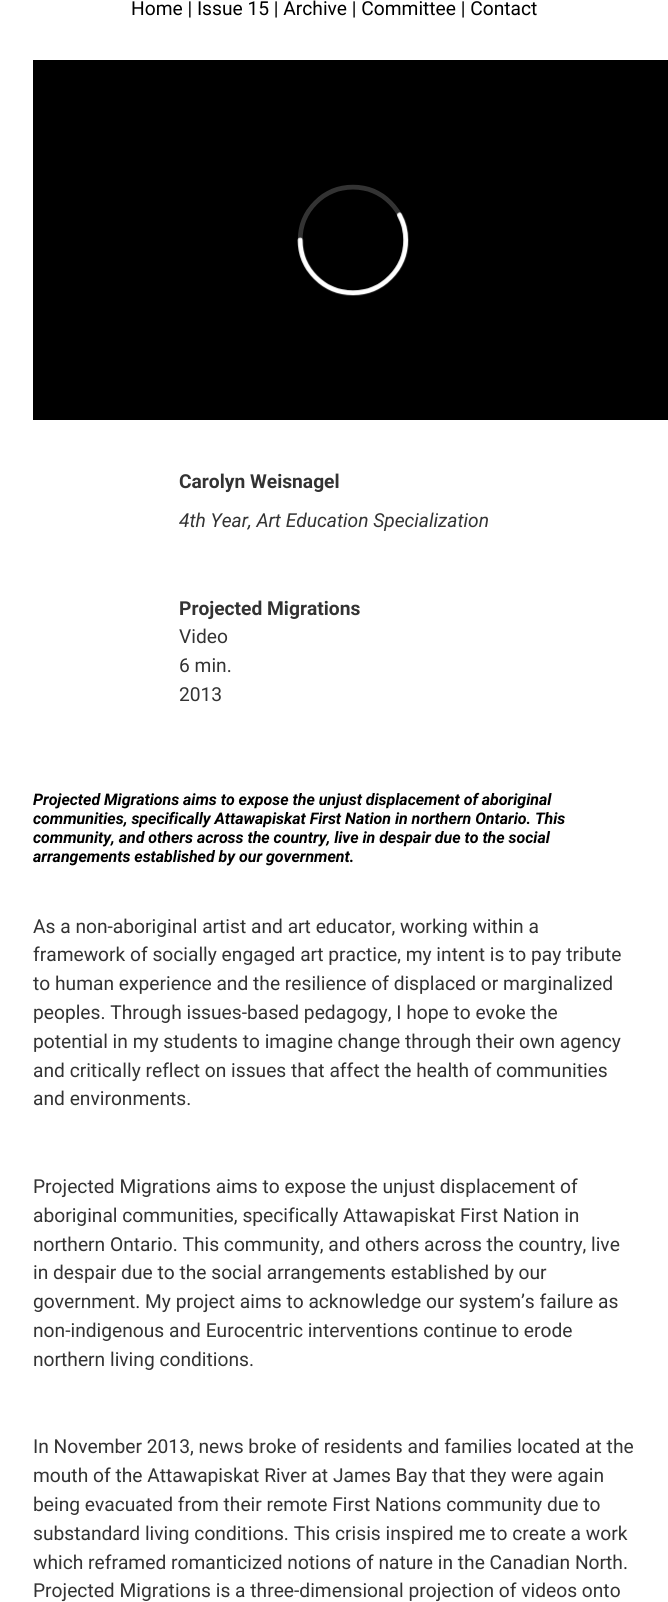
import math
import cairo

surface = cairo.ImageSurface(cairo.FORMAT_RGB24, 668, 1602)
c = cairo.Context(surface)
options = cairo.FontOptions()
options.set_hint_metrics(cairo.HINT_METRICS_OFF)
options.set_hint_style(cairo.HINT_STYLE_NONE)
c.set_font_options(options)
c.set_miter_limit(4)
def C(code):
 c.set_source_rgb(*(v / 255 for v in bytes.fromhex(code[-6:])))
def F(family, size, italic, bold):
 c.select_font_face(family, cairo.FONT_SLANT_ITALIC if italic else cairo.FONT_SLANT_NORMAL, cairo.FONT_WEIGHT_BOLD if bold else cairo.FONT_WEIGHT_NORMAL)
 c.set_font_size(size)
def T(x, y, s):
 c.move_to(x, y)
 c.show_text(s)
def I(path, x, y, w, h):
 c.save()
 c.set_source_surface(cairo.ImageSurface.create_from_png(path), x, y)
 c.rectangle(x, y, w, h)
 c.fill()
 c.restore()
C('ffffff')
c.paint()
F('Roboto',19.2,0,0)
C('000000')
T(131,15,'Home | Issue 15 | Archive | Committee | Contact')
I('1.png',33,60,635,360)
F('Roboto',19.2,0,1)
C('333333')
T(179,488,'Carolyn Weisnagel')
F('Roboto',19.2,1,0)
T(179,527,'4th Year, Art Education Specialization')
F('Roboto',19.2,0,1)
T(179,615,'Projected Migrations')
F('Roboto',19.2,0,0)
T(179,643,'Video')
T(179,672,'6 min.')
T(179,701,'2013')
F('Roboto',15.95,1,1)
C('000000')
T(33,805,'Projected Migrations aims to expose the unjust displacement of aboriginal')
T(33,824,'communities, specifically Attawapiskat First Nation in northern Ontario. This')
T(33,843,'community, and others across the country, live in despair due to the social')
T(33,862,'arrangements established by our government.')
F('Roboto',19.2,0,0)
C('333333')
T(33,933,'As a non-aboriginal artist and art educator, working within a')
T(33,961,'framework of socially engaged art practice, my intent is to pay tribute')
T(33,990,'to human experience and the resilience of displaced or marginalized')
T(33,1019,'peoples. Through issues-based pedagogy, I hope to evoke the')
T(33,1048,'potential in my students to imagine change through their own agency')
T(33,1077,'and critically reflect on issues that affect the health of communities')
T(33,1105,'and environments.')
T(33,1193,'Projected Migrations aims to expose the unjust displacement of')
T(33,1222,'aboriginal communities, specifically Attawapiskat First Nation in')
T(33,1251,'northern Ontario. This community, and others across the country, live')
T(33,1279,'in despair due to the social arrangements established by our')
T(33,1308,'government. My project aims to acknowledge our system’s failure as')
T(33,1337,'non-indigenous and Eurocentric interventions continue to erode')
T(33,1366,'northern living conditions.')
T(33,1453,'In November 2013, news broke of residents and families located at the')
T(33,1482,'mouth of the Attawapiskat River at James Bay that they were again')
T(33,1511,'being evacuated from their remote First Nations community due to')
T(33,1540,'substandard living conditions. This crisis inspired me to create a work')
T(33,1569,'which reframed romanticized notions of nature in the Canadian North.')
T(33,1597,'Projected Migrations is a three-dimensional projection of videos onto')
surface.write_to_png('o.png')
